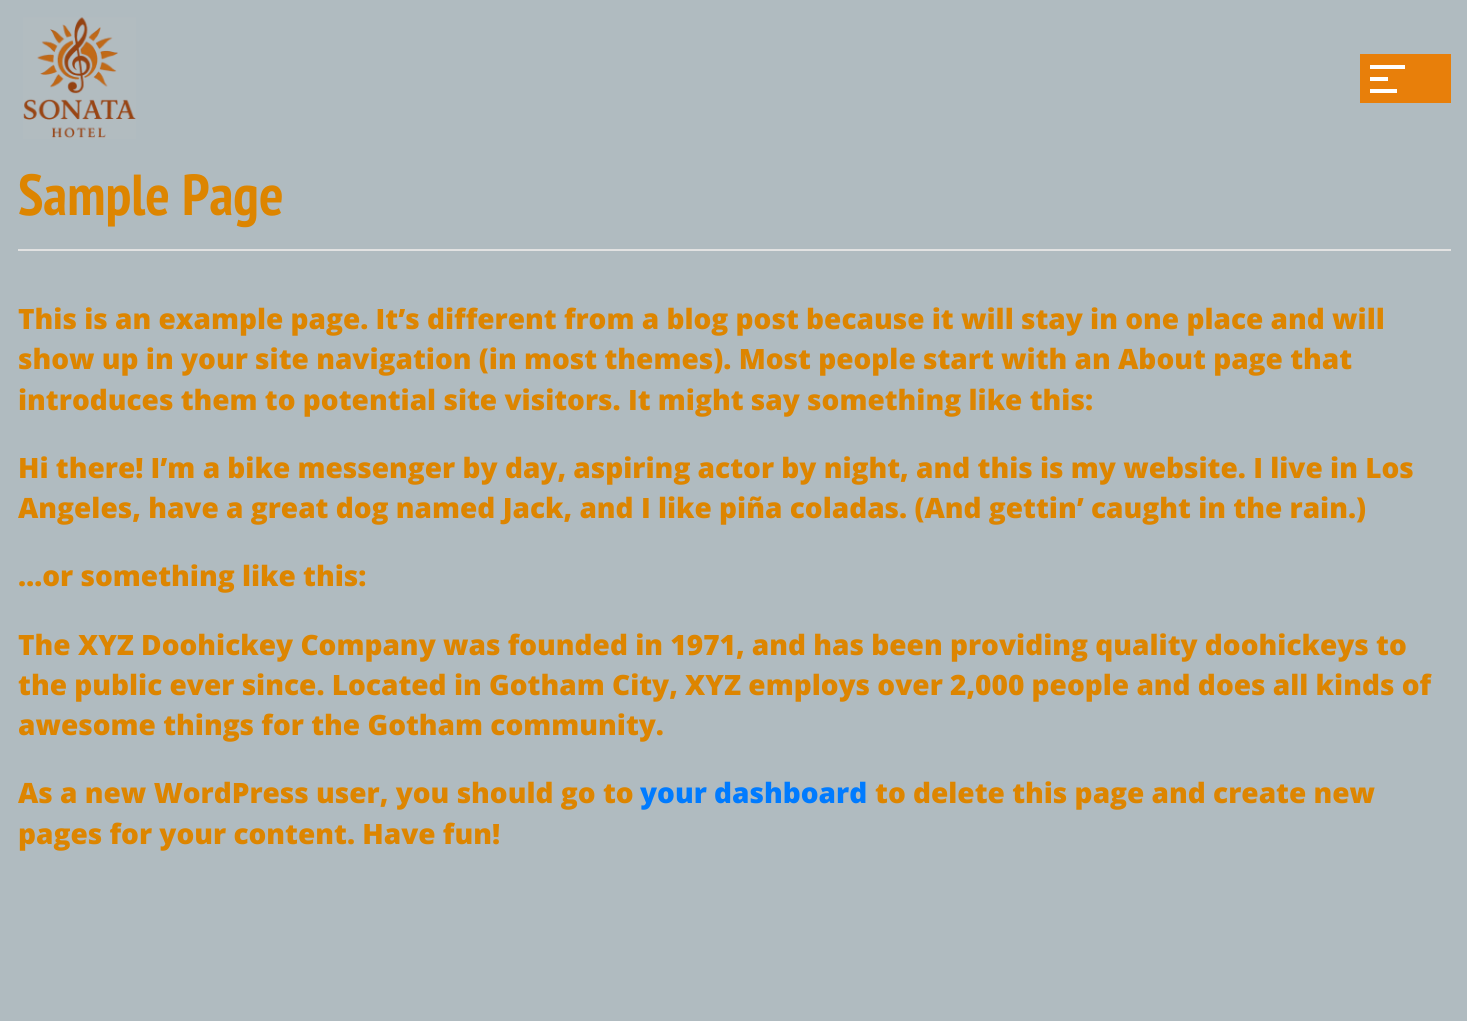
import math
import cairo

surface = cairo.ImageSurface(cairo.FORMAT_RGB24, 1467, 1021)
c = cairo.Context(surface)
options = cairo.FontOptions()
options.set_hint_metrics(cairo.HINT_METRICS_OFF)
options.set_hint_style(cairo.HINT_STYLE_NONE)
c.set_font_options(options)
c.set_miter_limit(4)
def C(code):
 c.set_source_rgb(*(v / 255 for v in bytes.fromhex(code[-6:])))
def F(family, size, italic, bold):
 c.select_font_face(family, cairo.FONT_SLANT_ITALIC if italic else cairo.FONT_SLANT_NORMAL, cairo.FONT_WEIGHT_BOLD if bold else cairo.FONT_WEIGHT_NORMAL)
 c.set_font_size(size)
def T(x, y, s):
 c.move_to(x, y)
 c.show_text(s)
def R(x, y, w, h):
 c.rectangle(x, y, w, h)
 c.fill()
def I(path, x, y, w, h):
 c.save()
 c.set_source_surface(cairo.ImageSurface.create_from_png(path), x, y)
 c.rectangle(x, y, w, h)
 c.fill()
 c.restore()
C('b0bbc0')
c.paint()
I('1.png',23,17,113,122)
C('e87f0a')
R(1360,54,91,49)
C('ffffff')
R(1370,65,35,4)
R(1370,77,18,4)
R(1370,89,27,4)
C('e2e2e2')
R(18,249,1433,2)
F('PT Sans Narrow',57.75,0,1)
C('dd8500')
T(18,215,'Sample Page')
F('Open Sans ExtraBold',28,0,0)
T(18,329,'This is an example page. It’s different from a blog post because it will stay in one place and will')
T(18,369,'show up in your site navigation (in most themes). Most people start with an About page that')
T(18,410,'introduces them to potential site visitors. It might say something like this:')
T(18,478,'Hi there! I’m a bike messenger by day, aspiring actor by night, and this is my website. I live in Los')
T(18,518,'Angeles, have a great dog named Jack, and I like piña coladas. (And gettin’ caught in the rain.)')
T(18,586,'…or something like this:')
T(18,655,'The XYZ Doohickey Company was founded in 1971, and has been providing quality doohickeys to')
T(18,695,'the public ever since. Located in Gotham City, XYZ employs over 2,000 people and does all kinds of')
T(18,735,'awesome things for the Gotham community.')
T(18,803,'As a new WordPress user, you should go to')
C('007bff')
T(640,803,'your dashboard')
C('dd8500')
T(875,803,'to delete this page and create new')
T(18,844,'pages for your content. Have fun!')
surface.write_to_png('o.png')
